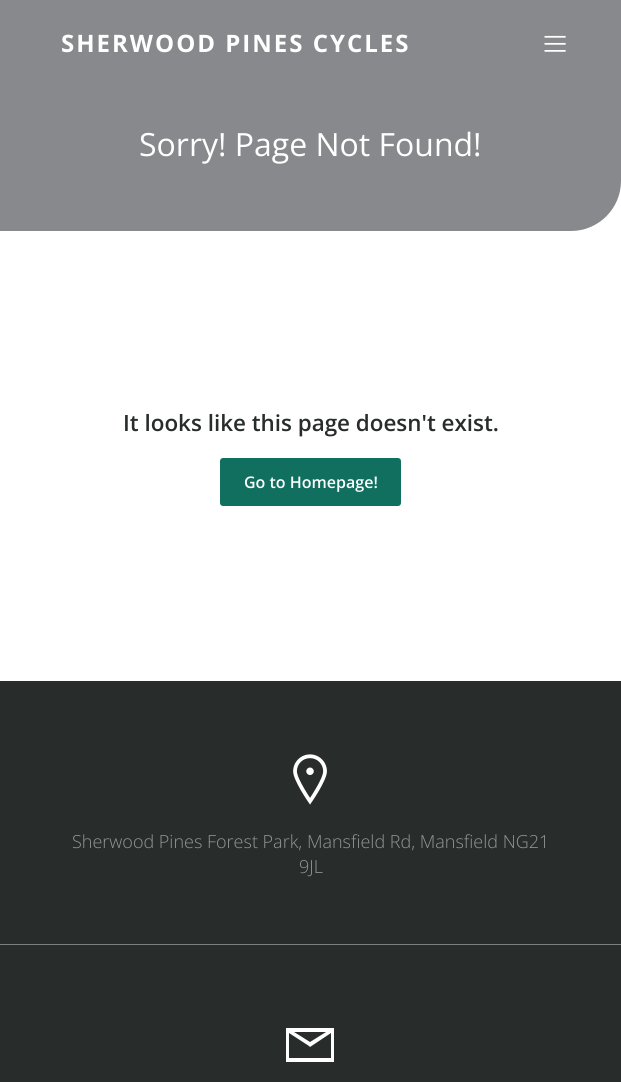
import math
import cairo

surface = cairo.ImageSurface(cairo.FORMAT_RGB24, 621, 1082)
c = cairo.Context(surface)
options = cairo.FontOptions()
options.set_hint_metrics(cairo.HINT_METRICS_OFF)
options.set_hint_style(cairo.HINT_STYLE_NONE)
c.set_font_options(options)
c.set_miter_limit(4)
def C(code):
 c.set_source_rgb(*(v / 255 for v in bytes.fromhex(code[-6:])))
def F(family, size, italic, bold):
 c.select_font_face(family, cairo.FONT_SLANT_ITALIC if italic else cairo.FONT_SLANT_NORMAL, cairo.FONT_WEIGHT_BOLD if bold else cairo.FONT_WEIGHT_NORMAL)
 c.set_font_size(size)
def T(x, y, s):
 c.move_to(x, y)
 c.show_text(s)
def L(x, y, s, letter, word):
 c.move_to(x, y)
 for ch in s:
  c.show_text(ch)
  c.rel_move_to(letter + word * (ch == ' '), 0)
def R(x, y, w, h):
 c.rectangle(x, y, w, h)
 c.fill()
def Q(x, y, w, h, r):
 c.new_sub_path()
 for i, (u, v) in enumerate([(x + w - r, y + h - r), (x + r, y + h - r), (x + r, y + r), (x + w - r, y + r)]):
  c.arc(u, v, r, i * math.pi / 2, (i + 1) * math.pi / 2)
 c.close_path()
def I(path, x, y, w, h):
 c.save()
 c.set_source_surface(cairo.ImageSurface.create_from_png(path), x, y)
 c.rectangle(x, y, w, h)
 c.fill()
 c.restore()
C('ffffff')
c.paint()
C('88898d')
c.new_path()
c.move_to(0,0)
c.line_to(621,0)
c.line_to(621,181)
c.curve_to(621,208.5,598.5,231,571,231)
c.line_to(0,231)
c.close_path()
c.fill()
F('Open Sans',24,0,1)
C('ffffff')
L(61,52,'SHERWOOD PINES CYCLES',2,0)
I('1.png',544,35,22,17)
F('Open Sans',32,0,0)
T(139,156,'Sorry! Page Not Found!')
F('Open Sans SemiBold',22.4,0,0)
C('282c2b')
T(123,431,'It looks like this page doesn\'t exist.')
C('106f5f')
Q(220,458,181,48,3)
c.fill()
F('Open Sans SemiBold',16,0,0)
C('ffffff')
T(244,488,'Go to Homepage!')
C('282c2b')
R(0,681,621,401)
C('7e8080')
R(0,944,621,1)
I('2.png',293,754,34,51)
F('Open Sans Light',18,0,0)
C('949695')
T(72,848,'Sherwood Pines Forest Park, Mansfield Rd, Mansfield NG21')
T(299,873,'9JL')
C('ffffff')
c.new_path()
c.move_to(286,1028)
c.line_to(334,1028)
c.line_to(334,1062)
c.line_to(286,1062)
c.close_path()
c.move_to(294,1032)
c.line_to(310,1042)
c.line_to(326,1032)
c.close_path()
c.move_to(289,1033)
c.line_to(289,1058)
c.line_to(331,1058)
c.line_to(331,1033)
c.line_to(310,1047)
c.line_to(309,1046)
c.close_path()
c.fill()
surface.write_to_png('o.png')
